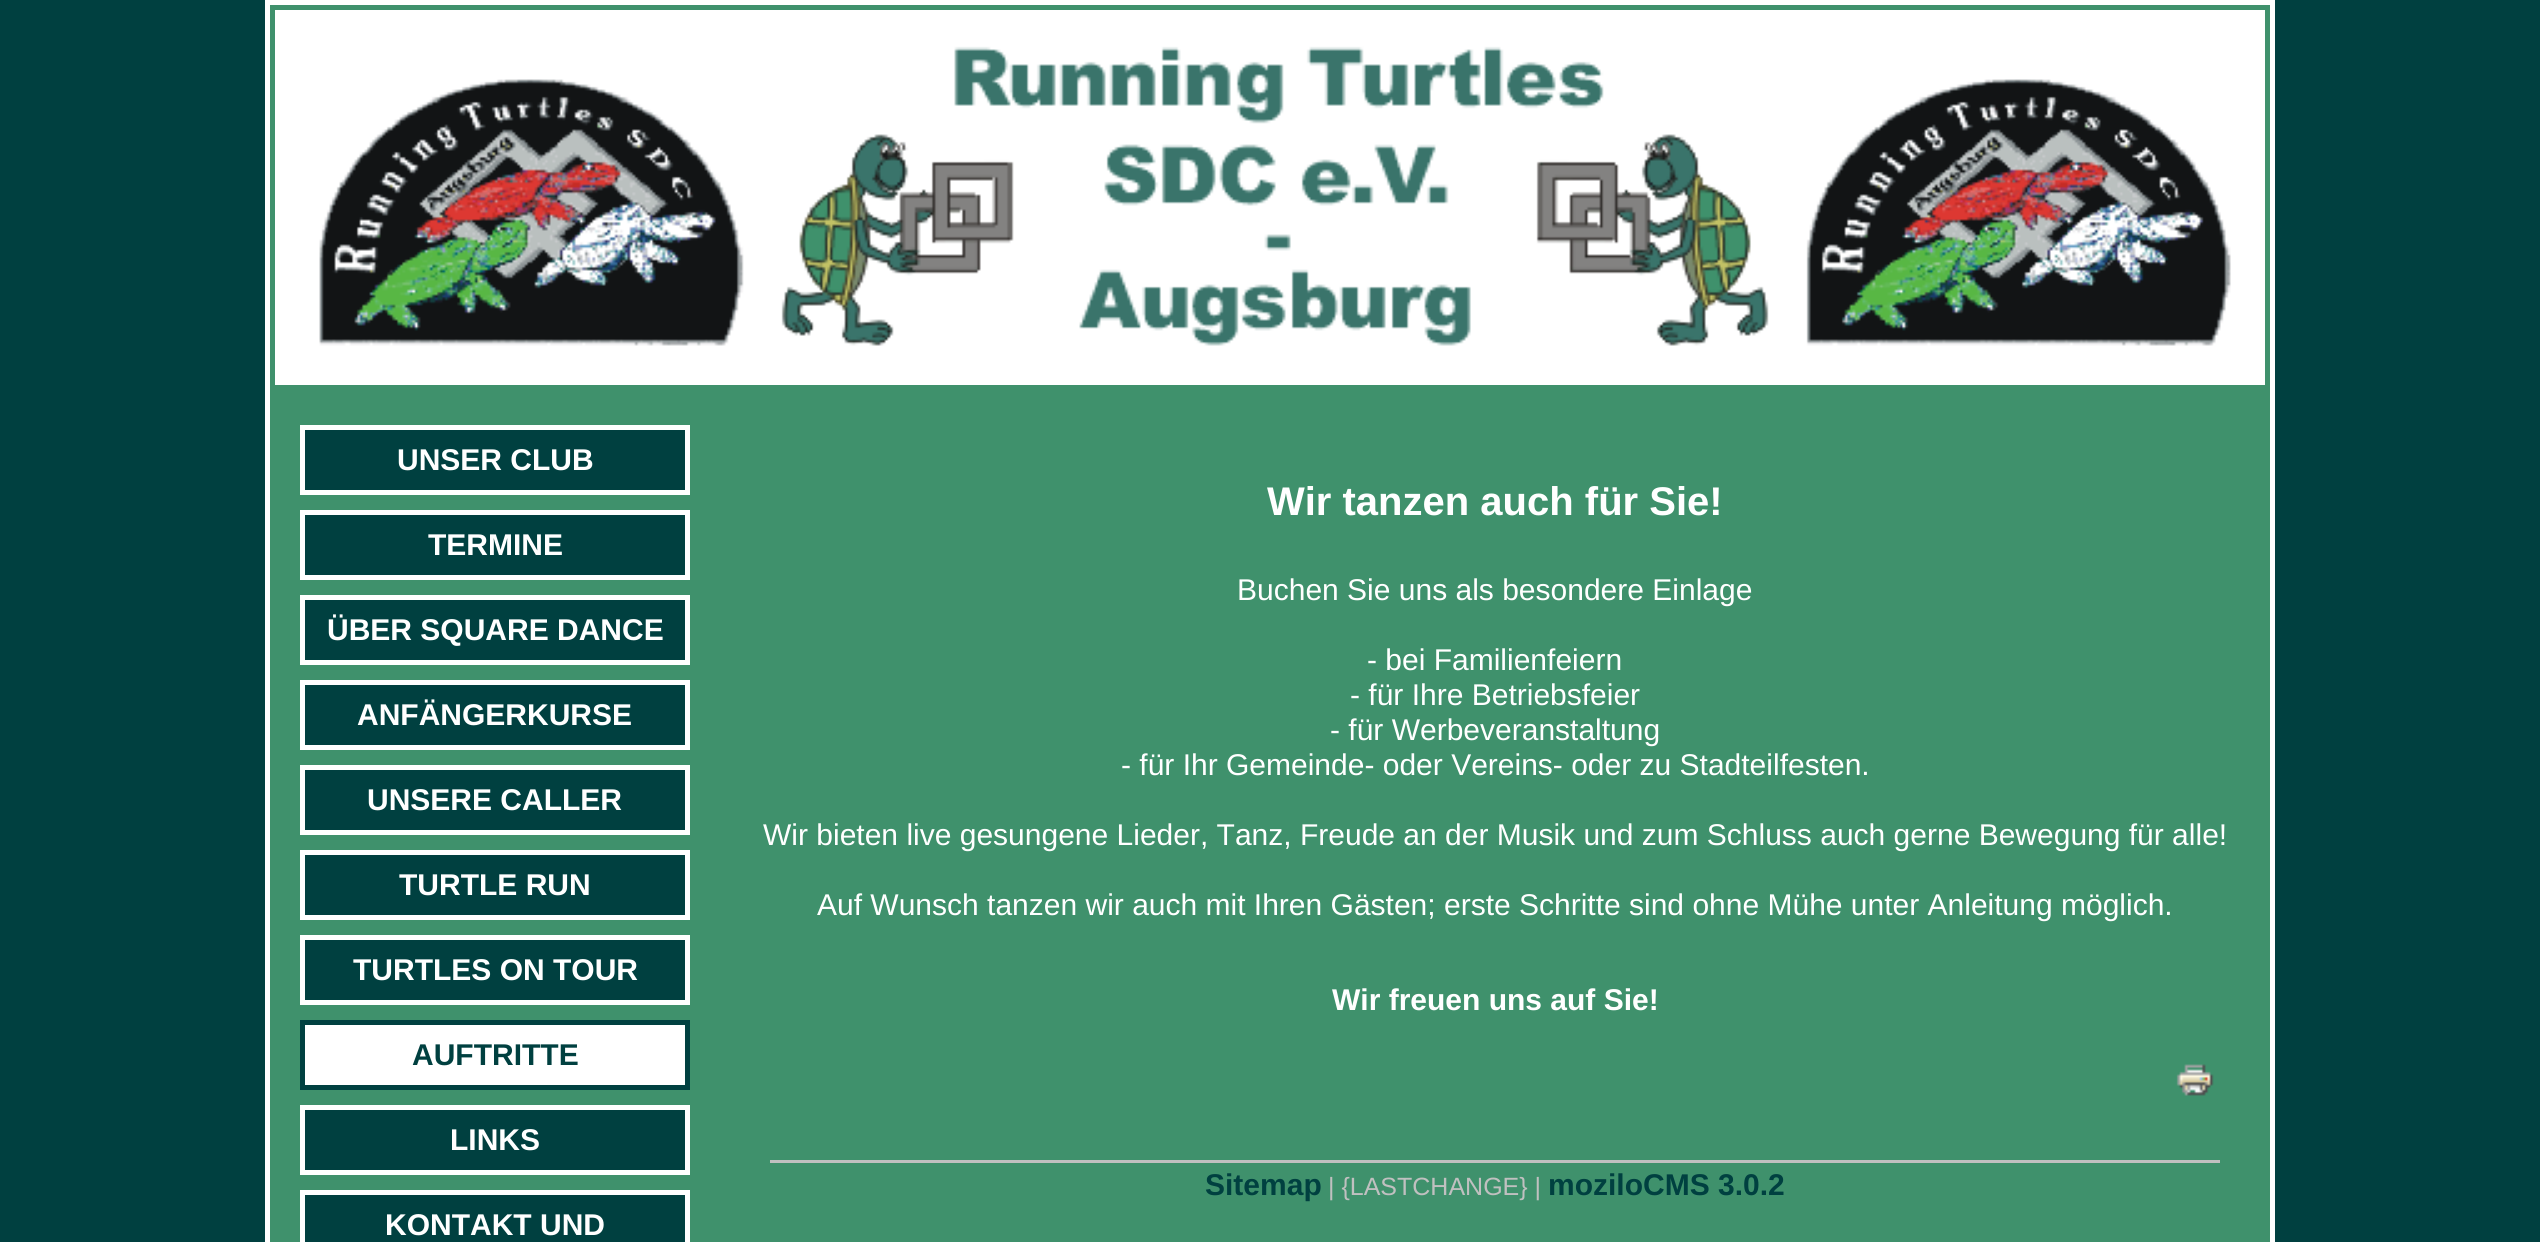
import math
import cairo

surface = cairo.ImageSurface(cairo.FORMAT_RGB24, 2540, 1242)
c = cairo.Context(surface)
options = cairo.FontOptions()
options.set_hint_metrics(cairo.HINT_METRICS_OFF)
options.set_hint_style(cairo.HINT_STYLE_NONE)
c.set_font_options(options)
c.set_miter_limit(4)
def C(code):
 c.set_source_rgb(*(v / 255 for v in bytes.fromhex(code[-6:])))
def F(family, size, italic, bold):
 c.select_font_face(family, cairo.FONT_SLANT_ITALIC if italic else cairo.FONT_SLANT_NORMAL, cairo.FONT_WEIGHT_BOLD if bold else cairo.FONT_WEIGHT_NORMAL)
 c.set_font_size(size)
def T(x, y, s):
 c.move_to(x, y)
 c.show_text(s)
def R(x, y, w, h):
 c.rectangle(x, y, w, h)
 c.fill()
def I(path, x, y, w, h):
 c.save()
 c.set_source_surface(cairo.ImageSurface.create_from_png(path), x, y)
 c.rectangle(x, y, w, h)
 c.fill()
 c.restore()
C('004040')
c.paint()
C('3f916c')
R(270,390,2000,852)
c.rectangle(267.5,2.5,2005,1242)
C('ffffff')
c.set_line_width(5)
c.stroke()
I('1.png',275,10,1990,375)
c.rectangle(272.5,7.5,1995,380)
C('3f916c')
c.stroke()
C('004040')
c.rectangle(302.5,427.5,385,65)
c.fill_preserve()
C('ffffff')
c.stroke()
F('Liberation Sans',30,0,1)
T(397,470,'UNSER CLUB')
C('004040')
c.rectangle(302.5,512.5,385,65)
c.fill_preserve()
C('ffffff')
c.stroke()
T(428,555,'TERMINE')
C('004040')
c.rectangle(302.5,597.5,385,65)
c.fill_preserve()
C('ffffff')
c.stroke()
T(327,640,'ÜBER SQUARE DANCE')
C('004040')
c.rectangle(302.5,682.5,385,65)
c.fill_preserve()
C('ffffff')
c.stroke()
T(357,725,'ANFÄNGERKURSE')
C('004040')
c.rectangle(302.5,767.5,385,65)
c.fill_preserve()
C('ffffff')
c.stroke()
T(367,810,'UNSERE CALLER')
C('004040')
c.rectangle(302.5,852.5,385,65)
c.fill_preserve()
C('ffffff')
c.stroke()
T(399,895,'TURTLE RUN')
C('004040')
c.rectangle(302.5,937.5,385,65)
c.fill_preserve()
C('ffffff')
c.stroke()
T(353,980,'TURTLES ON TOUR')
c.rectangle(302.5,1022.5,385,65)
c.fill_preserve()
C('004040')
c.stroke()
T(412,1065,'AUFTRITTE')
c.rectangle(302.5,1107.5,385,65)
c.fill_preserve()
C('ffffff')
c.stroke()
T(450,1150,'LINKS')
C('004040')
c.rectangle(302.5,1192.5,385,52)
c.fill_preserve()
C('ffffff')
c.stroke()
T(385,1235,'KONTAKT UND')
F('Liberation Sans',40,0,1)
T(1267,515,'Wir tanzen auch für Sie!')
F('Liberation Sans',30,0,0)
T(1237,600,'Buchen Sie uns als besondere Einlage')
T(1367,670,'- bei Familienfeiern')
T(1350,705,'- für Ihre Betriebsfeier')
T(1330,740,'- für Werbeveranstaltung')
T(1121,775,'- für Ihr Gemeinde- oder Vereins- oder zu Stadteilfesten.')
T(763,845,'Wir bieten live gesungene Lieder, Tanz, Freude an der Musik und zum Schluss auch gerne Bewegung für alle!')
T(817,915,'Auf Wunsch tanzen wir auch mit Ihren Gästen; erste Schritte sind ohne Mühe unter Anleitung möglich.')
F('Liberation Sans',30,0,1)
T(1332,1010,'Wir freuen uns auf Sie!')
I('2.png',2176,1064,38,32)
C('c0c0c0')
R(770,1160,1450,3)
C('004040')
T(1205,1195,'Sitemap')
F('Liberation Sans',25,0,0)
C('c0c0c0')
T(1328,1195,'| {LASTCHANGE} |')
F('Liberation Sans',30,0,1)
C('004040')
T(1548,1195,'moziloCMS 3.0.2')
surface.write_to_png('o.png')
